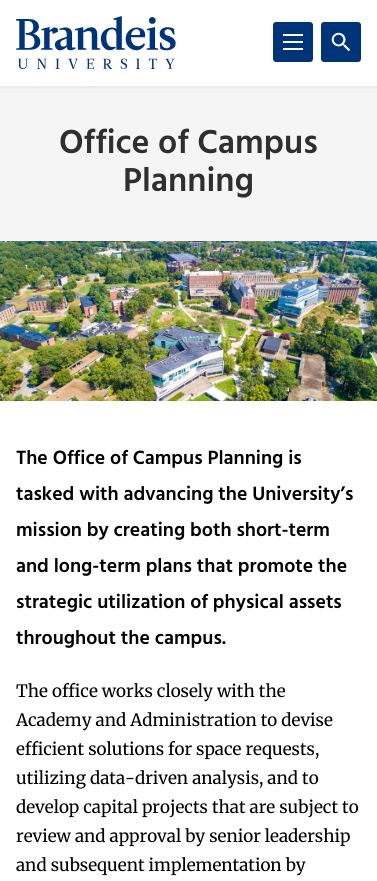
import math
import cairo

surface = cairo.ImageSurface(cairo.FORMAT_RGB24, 377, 881)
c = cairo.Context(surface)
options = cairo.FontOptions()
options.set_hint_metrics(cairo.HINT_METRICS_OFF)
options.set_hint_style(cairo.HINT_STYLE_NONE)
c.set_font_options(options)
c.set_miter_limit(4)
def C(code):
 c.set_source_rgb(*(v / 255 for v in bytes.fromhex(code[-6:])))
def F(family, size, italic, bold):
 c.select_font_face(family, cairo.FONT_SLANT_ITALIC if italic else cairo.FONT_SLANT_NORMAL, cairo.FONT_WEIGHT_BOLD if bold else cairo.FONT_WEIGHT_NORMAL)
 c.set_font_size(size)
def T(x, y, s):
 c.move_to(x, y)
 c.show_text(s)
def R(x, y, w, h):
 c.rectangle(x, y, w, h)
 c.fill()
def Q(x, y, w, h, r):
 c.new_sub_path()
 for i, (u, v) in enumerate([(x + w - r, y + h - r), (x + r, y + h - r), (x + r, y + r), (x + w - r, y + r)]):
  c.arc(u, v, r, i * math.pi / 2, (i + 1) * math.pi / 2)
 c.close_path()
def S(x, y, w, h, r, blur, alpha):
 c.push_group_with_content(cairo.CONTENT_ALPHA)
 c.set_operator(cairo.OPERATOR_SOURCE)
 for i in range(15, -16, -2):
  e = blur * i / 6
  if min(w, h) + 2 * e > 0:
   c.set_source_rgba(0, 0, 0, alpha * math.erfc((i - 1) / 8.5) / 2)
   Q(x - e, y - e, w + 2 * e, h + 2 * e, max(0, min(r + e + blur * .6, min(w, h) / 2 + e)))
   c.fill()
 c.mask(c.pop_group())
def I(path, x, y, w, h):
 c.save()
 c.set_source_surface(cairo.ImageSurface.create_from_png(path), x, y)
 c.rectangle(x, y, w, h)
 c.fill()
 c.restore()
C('ffffff')
c.paint()
C('f5f5f5')
R(0,86,377,155)
c.save()
c.rectangle(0,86,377,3)
c.clip()
C('000000')
S(0,0,377,86,0,3,.12)
c.restore()
I('1.png',16,16,160,53)
C('003478')
Q(273,22,40,40,3)
c.fill()
I('2.png',283,34,20,16)
Q(321,22,40,40,3)
c.fill()
I('3.png',331,32,20,20)
F('Hind SemiBold',34,0,0)
C('2f2f2f')
T(59,153,'Office of Campus')
T(123,191,'Planning')
I('4.png',0,241,377,160)
F('Hind SemiBold',19.7,0,0)
C('000000')
T(16,464,'The Office of Campus Planning is')
T(16,500,'tasked with advancing the University’s')
T(16,536,'mission by creating both short-term')
T(16,572,'and long-term plans that promote the')
T(16,608,'strategic utilization of physical assets')
T(16,644,'throughout the campus.')
F('Merriweather',17,0,0)
T(16,697,'The office works closely with the')
T(16,726,'Academy and Administration to devise')
T(16,755,'efficient solutions for space requests,')
T(16,784,'utilizing data-driven analysis, and to')
T(16,813,'develop capital projects that are subject to')
T(16,842,'review and approval by senior leadership')
T(16,871,'and subsequent implementation by')
surface.write_to_png('o.png')
